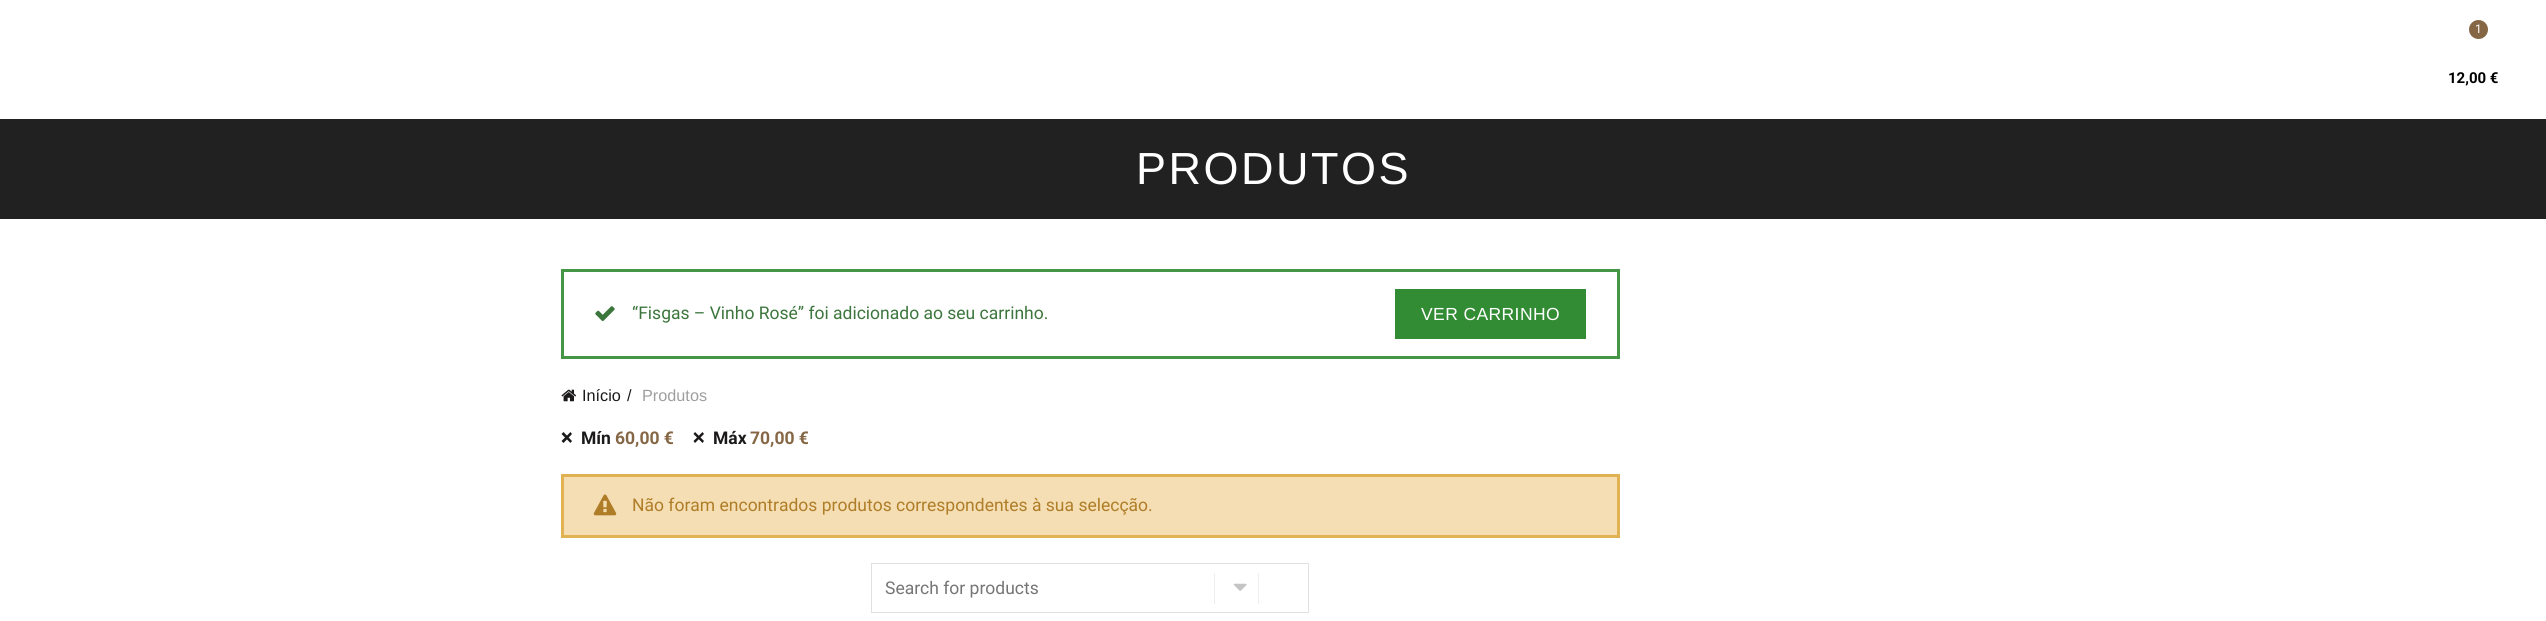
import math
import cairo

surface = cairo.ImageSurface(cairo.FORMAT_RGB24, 2546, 621)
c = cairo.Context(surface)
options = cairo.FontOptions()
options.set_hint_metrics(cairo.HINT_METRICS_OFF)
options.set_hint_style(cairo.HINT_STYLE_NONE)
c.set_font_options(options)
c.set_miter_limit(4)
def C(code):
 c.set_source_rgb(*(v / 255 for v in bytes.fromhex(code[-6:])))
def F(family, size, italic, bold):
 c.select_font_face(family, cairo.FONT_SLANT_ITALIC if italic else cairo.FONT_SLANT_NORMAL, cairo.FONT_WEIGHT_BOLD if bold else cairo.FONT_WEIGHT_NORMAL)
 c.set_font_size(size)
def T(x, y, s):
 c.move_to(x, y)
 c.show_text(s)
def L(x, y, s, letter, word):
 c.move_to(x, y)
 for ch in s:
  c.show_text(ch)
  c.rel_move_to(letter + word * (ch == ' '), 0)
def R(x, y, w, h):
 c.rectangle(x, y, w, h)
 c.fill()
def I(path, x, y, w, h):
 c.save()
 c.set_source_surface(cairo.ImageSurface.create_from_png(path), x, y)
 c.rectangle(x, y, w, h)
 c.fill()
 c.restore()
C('ffffff')
c.paint()
C('856745')
c.arc(2478.5,29.5,9.5,0,2 * math.pi)
c.fill()
F('Roboto',12,0,0)
C('ffffff')
T(2475,33,'1')
F('Roboto',15,0,1)
C('000000')
T(2448,83,'12,00 €')
C('212121')
R(0,119,2546,100)
F('Liberation Sans',45,0,0)
C('ffffff')
L(1136,184,'PRODUTOS',2.5,0)
c.rectangle(562.5,270.5,1056,87)
C('459647')
c.set_line_width(3)
c.stroke()
I('1.png',595,306,20,16)
F('Roboto',17.5,0,0)
C('3c763d')
T(632,319,'“Fisgas – Vinho Rosé” foi adicionado ao seu carrinho.')
C('328c34')
R(1395,289,191,50)
F('Liberation Sans',17.5,0,0)
C('ffffff')
L(1421,320,'VER CARRINHO',.4,0)
I('2.png',561,389,16,13)
F('Liberation Sans',16.25,0,0)
C('1b1919')
T(582,401,'Início')
T(627,401,'/')
C('9e9e9e')
T(642,401,'Produtos')
C('1b1919')
c.new_path()
c.move_to(563.5,432)
c.line_to(572,441)
c.line_to(570.5,443)
c.line_to(561.5,434)
c.close_path()
c.fill()
F('Roboto',17.5,0,1)
T(581,444,'Mín')
C('856745')
T(615,444,'60,00 €')
C('1b1919')
c.new_path()
c.move_to(561.5,441)
c.line_to(570.5,432)
c.line_to(572,434)
c.line_to(563.5,443)
c.close_path()
c.fill()
c.new_path()
c.move_to(695,432)
c.line_to(704,441)
c.line_to(702.5,443)
c.line_to(693.5,434)
c.close_path()
c.fill()
T(713,444,'Máx')
C('856745')
T(750,444,'70,00 €')
C('1b1919')
c.new_path()
c.move_to(693.5,441)
c.line_to(702.5,432)
c.line_to(704,434)
c.line_to(695,443)
c.close_path()
c.fill()
C('f5deb3')
c.rectangle(562.5,475.5,1056,61)
c.fill_preserve()
C('e0b252')
c.stroke()
I('3.png',593,494,24,22)
F('Roboto',17.5,0,0)
C('af7d27')
T(632,511,'Não foram encontrados produtos correspondentes à sua selecção.')
c.rectangle(871.5,563.5,437,49)
C('e0e0e0')
c.set_line_width(1)
c.stroke()
C('757575')
T(885,594,'Search for products')
C('eeeeee')
R(1214,573,1,31)
I('4.png',1233,583,14,8)
R(1258,573,1,31)
surface.write_to_png('o.png')
